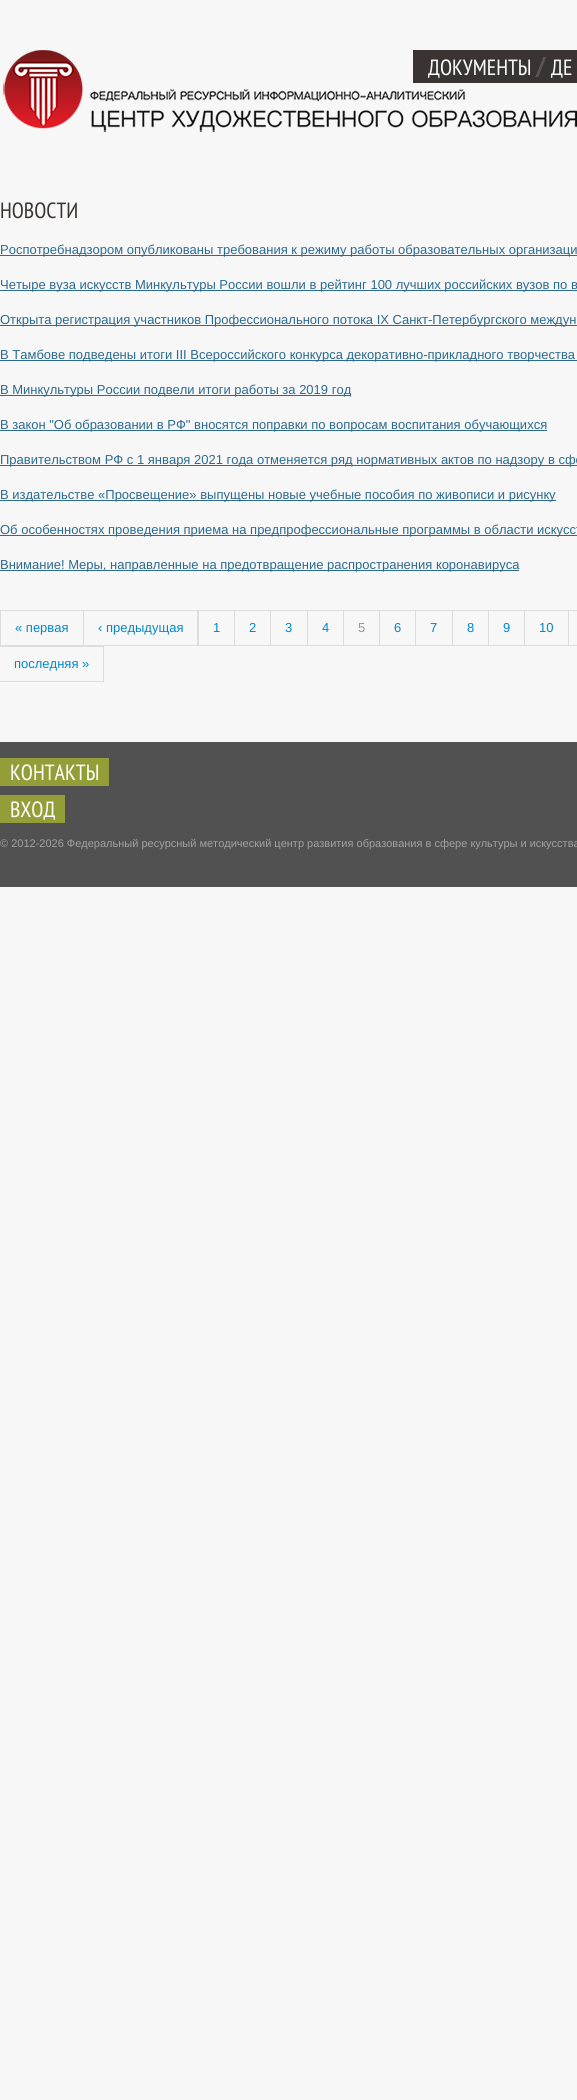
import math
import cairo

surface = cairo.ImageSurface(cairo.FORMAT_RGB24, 577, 2100)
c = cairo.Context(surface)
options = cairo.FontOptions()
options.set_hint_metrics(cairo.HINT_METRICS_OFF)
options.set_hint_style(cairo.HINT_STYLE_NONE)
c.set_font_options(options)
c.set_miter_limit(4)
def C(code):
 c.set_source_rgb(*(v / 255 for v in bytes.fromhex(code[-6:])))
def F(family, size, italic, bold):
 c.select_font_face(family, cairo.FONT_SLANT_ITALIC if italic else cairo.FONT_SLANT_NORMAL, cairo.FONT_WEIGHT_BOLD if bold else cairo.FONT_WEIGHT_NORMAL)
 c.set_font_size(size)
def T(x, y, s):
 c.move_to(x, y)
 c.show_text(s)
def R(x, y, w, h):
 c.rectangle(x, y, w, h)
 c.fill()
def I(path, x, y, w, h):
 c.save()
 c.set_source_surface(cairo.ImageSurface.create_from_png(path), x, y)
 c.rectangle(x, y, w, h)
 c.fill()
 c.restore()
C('f7f7f7')
c.paint()
I('1.png',3,50,574,82)
C('393431')
R(413,50,164,33)
F('PT Sans Narrow',22,0,0)
C('ffffff')
T(428,75,'ДОКУМЕНТЫ')
I('2.png',535,57,11,20)
T(551,75,'ДЕ')
C('393431')
T(0,218,'НОВОСТИ')
C('2c6a8f')
R(0,255,577,1)
F('Liberation Sans',13,0,0)
T(0,254,'Роспотребнадзором опубликованы требования к режиму работы образовательных организаци')
R(0,290,577,1)
T(0,289,'Четыре вуза искусств Минкультуры России вошли в рейтинг 100 лучших российских вузов по в')
R(0,325,577,1)
T(0,324,'Открыта регистрация участников Профессионального потока IX Санкт-Петербургского междун')
R(0,360,577,1)
T(0,359,'В Тамбове подведены итоги III Всероссийского конкурса декоративно-прикладного творчества')
R(0,395,351,1)
T(0,394,'В Минкультуры России подвели итоги работы за 2019 год')
R(0,430,547,1)
T(0,429,'В закон "Об образовании в РФ" вносятся поправки по вопросам воспитания обучающихся')
R(0,465,577,1)
T(0,464,'Правительством РФ с 1 января 2021 года отменяется ряд нормативных актов по надзору в сфе')
R(0,500,556,1)
T(0,499,'В издательстве «Просвещение» выпущены новые учебные пособия по живописи и рисунку')
R(0,535,577,1)
T(0,534,'Об особенностях проведения приема на предпрофессиональные программы в области искусст')
R(0,570,519,1)
T(0,569,'Внимание! Меры, направленные на предотвращение распространения коронавируса')
c.rectangle(.5,610.5,83,35)
C('dddddd')
c.set_line_width(1)
c.stroke()
C('0088cc')
T(15,632,'« первая')
C('dddddd')
R(84,610,114,1)
R(197,610,1,36)
R(84,645,114,1)
C('0088cc')
T(98,632,'‹ предыдущая')
c.rectangle(198.5,610.5,36,35)
C('dddddd')
c.stroke()
C('0088cc')
T(213,632,'1')
C('dddddd')
R(235,610,342,1)
R(270,610,1,36)
R(235,645,36,1)
C('0088cc')
T(249,632,'2')
C('dddddd')
R(307,610,1,36)
R(271,645,37,1)
C('0088cc')
T(285,632,'3')
C('dddddd')
R(343,610,1,36)
R(308,645,36,1)
C('0088cc')
T(322,632,'4')
C('dddddd')
R(379,610,1,36)
R(344,645,36,1)
C('999999')
T(358,632,'5')
C('dddddd')
R(415,610,1,36)
R(380,645,36,1)
C('0088cc')
T(394,632,'6')
C('dddddd')
R(452,610,1,36)
R(416,645,37,1)
C('0088cc')
T(430,632,'7')
C('dddddd')
R(488,610,1,36)
R(453,645,36,1)
C('0088cc')
T(467,632,'8')
C('dddddd')
R(524,610,1,36)
R(489,645,36,1)
C('0088cc')
T(503,632,'9')
C('dddddd')
R(568,610,1,36)
R(525,645,52,1)
C('0088cc')
T(539,632,'10')
C('dddddd')
R(0,646,104,1)
R(103,646,1,36)
R(0,681,104,1)
C('0088cc')
T(14,668,'последняя »')
C('515151')
R(0,742,577,145)
C('949e39')
R(0,758,109,28)
F('PT Sans Narrow',22,0,0)
C('ffffff')
T(10,780,'КОНТАКТЫ')
C('949e39')
R(0,795,65,28)
C('ffffff')
T(10,817,'ВХОД')
F('Liberation Sans',11,0,0)
C('a2a2a2')
T(0,847,'© 2012-2026 Федеральный ресурсный методический центр развития образования в сфере культуры и искусства')
surface.write_to_png('o.png')
